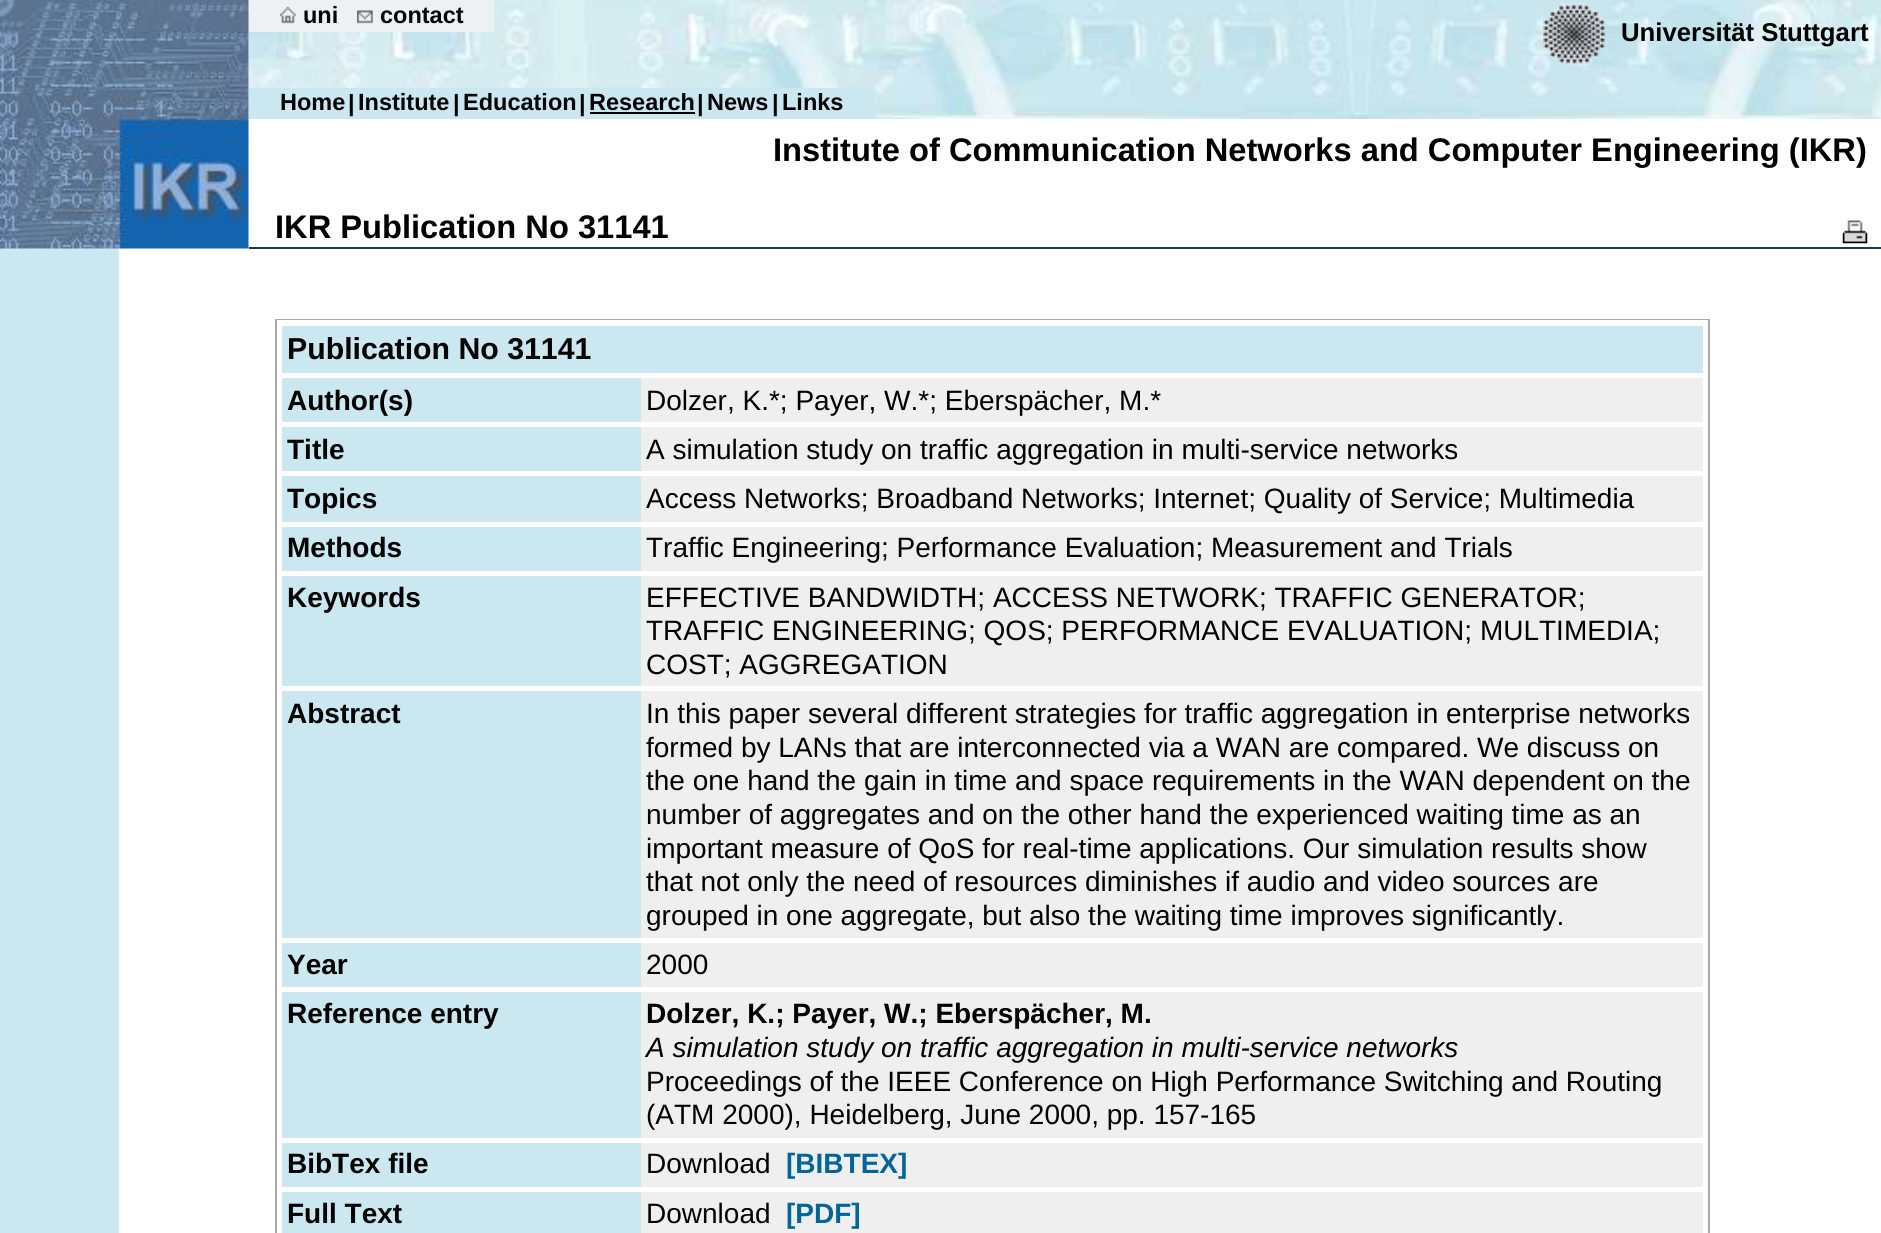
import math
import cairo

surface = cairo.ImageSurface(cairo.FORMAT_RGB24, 1881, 1233)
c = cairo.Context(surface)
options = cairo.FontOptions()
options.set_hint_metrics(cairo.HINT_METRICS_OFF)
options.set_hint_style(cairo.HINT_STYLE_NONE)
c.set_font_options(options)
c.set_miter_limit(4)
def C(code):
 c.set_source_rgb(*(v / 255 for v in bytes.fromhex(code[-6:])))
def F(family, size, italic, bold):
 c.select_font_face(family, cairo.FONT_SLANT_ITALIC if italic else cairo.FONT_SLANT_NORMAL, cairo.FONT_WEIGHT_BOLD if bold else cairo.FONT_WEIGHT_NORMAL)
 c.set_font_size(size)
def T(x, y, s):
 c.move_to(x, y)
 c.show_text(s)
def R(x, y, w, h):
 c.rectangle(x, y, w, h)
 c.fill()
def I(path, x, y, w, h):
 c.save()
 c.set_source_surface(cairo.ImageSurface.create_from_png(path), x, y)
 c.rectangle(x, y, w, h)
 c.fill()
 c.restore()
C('ffffff')
c.paint()
I('1.png',0,248,120,985)
I('3.png',248,0,1633,119)
I('2.png',0,0,249,249)
C('eef1f4')
R(249,0,245,32)
I('4.png',280,7,16,17)
F('Liberation Sans',23.5,0,1)
C('000000')
T(303,23,'uni')
I('5.png',357,10,16,14)
T(380,23,'contact')
I('6.png',1543,3,62,62)
F('Liberation Sans',25.75,0,1)
T(1621,41,'Universität Stuttgart')
C('cbe7ef')
R(249,88,626,31)
F('Liberation Sans',23.5,0,1)
C('000000')
T(280,110,'Home')
T(348,111,'|')
T(358,110,'Institute')
T(453,111,'|')
T(463,110,'Education')
T(579,111,'|')
T(589,110,'Research')
R(590,112,105,2)
T(697,111,'|')
T(707,110,'News')
T(772,111,'|')
T(782,110,'Links')
F('Liberation Sans',32.65,0,1)
T(773,161,'Institute of Communication Networks and Computer Engineering (IKR)')
T(275,238,'IKR Publication No 31141')
I('7.png',1842,220,26,24)
C('1c3842')
R(249,247,1632,2)
C('aaaaaa')
R(275,319,1435,914)
C('ffffff')
R(277,320,1431,913)
C('cbe7ef')
R(282,326,1421,47)
F('Liberation Sans',30.25,0,1)
C('000000')
T(287,359,'Publication No 31141')
C('cbe7ef')
R(282,378,359,44)
F('Liberation Sans',28,0,1)
C('000000')
T(287,410,'Author(s)')
C('efefef')
R(641,378,1062,44)
F('Liberation Sans',28,0,0)
C('000000')
T(646,410,'Dolzer, K.*; Payer, W.*; Eberspächer, M.*')
C('cbe7ef')
R(282,427,359,44)
F('Liberation Sans',28,0,1)
C('000000')
T(287,459,'Title')
C('efefef')
R(641,427,1062,44)
F('Liberation Sans',28,0,0)
C('000000')
T(646,459,'A simulation study on traffic aggregation in multi-service networks')
C('cbe7ef')
R(282,476,359,46)
F('Liberation Sans',28,0,1)
C('000000')
T(287,508,'Topics')
C('efefef')
R(641,476,1062,46)
F('Liberation Sans',28,0,0)
C('000000')
T(646,508,'Access Networks; Broadband Networks; Internet; Quality of Service; Multimedia')
C('cbe7ef')
R(282,527,359,44)
F('Liberation Sans',28,0,1)
C('000000')
T(287,557,'Methods')
C('efefef')
R(641,527,1062,44)
F('Liberation Sans',28,0,0)
C('000000')
T(646,557,'Traffic Engineering; Performance Evaluation; Measurement and Trials')
C('cbe7ef')
R(282,576,359,110)
F('Liberation Sans',28,0,1)
C('000000')
T(287,607,'Keywords')
C('efefef')
R(641,576,1062,110)
F('Liberation Sans',28,0,0)
C('000000')
T(646,607,'EFFECTIVE BANDWIDTH; ACCESS NETWORK; TRAFFIC GENERATOR;')
T(646,640,'TRAFFIC ENGINEERING; QOS; PERFORMANCE EVALUATION; MULTIMEDIA;')
T(646,674,'COST; AGGREGATION')
C('cbe7ef')
R(282,691,359,247)
F('Liberation Sans',28,0,1)
C('000000')
T(287,723,'Abstract')
C('efefef')
R(641,691,1062,247)
F('Liberation Sans',28,0,0)
C('000000')
T(646,723,'In this paper several different strategies for traffic aggregation in enterprise networks')
T(646,757,'formed by LANs that are interconnected via a WAN are compared. We discuss on')
T(646,790,'the one hand the gain in time and space requirements in the WAN dependent on the')
T(646,824,'number of aggregates and on the other hand the experienced waiting time as an')
T(646,858,'important measure of QoS for real-time applications. Our simulation results show')
T(646,891,'that not only the need of resources diminishes if audio and video sources are')
T(646,925,'grouped in one aggregate, but also the waiting time improves significantly.')
C('cbe7ef')
R(282,943,359,44)
F('Liberation Sans',28,0,1)
C('000000')
T(287,974,'Year')
C('efefef')
R(641,943,1062,44)
F('Liberation Sans',28,0,0)
C('000000')
T(646,974,'2000')
C('cbe7ef')
R(282,992,359,146)
F('Liberation Sans',28,0,1)
C('000000')
T(287,1023,'Reference entry')
C('efefef')
R(641,992,1062,146)
C('000000')
T(646,1023,'Dolzer, K.; Payer, W.; Eberspächer, M.')
F('Liberation Sans',28,1,0)
T(646,1057,'A simulation study on traffic aggregation in multi-service networks')
F('Liberation Sans',28,0,0)
T(646,1091,'Proceedings of the IEEE Conference on High Performance Switching and Routing')
T(646,1124,'(ATM 2000), Heidelberg, June 2000, pp. 157-165')
C('cbe7ef')
R(282,1143,359,44)
F('Liberation Sans',28,0,1)
C('000000')
T(287,1173,'BibTex file')
C('efefef')
R(641,1143,1062,44)
F('Liberation Sans',28,0,0)
C('000000')
T(646,1173,'Download')
F('Liberation Sans',28,0,1)
C('006699')
T(786,1173,'[BIBTEX]')
C('cbe7ef')
R(282,1192,359,41)
C('000000')
T(287,1223,'Full Text')
C('efefef')
R(641,1192,1062,41)
F('Liberation Sans',28,0,0)
C('000000')
T(646,1223,'Download')
F('Liberation Sans',28,0,1)
C('006699')
T(786,1223,'[PDF]')
surface.write_to_png('o.png')
